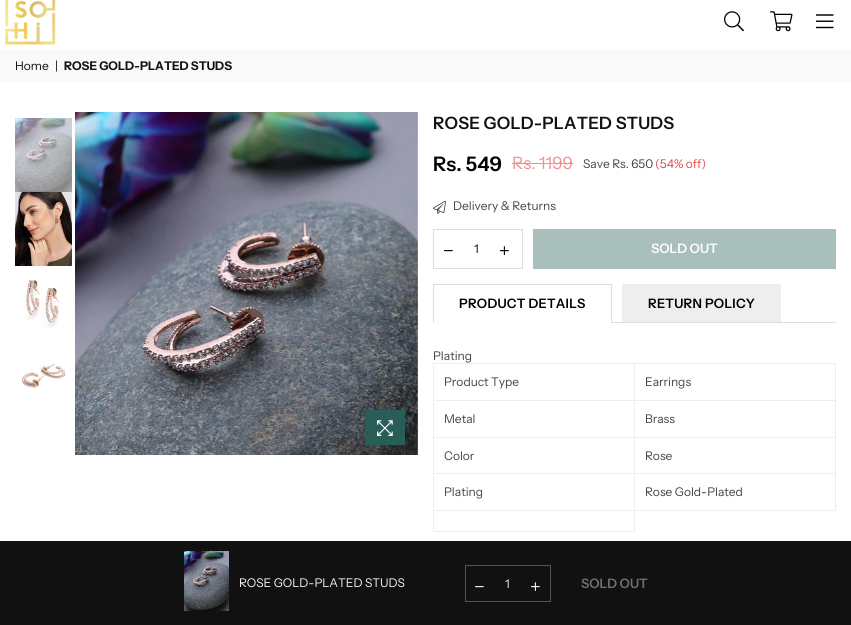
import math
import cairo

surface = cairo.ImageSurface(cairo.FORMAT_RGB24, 851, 625)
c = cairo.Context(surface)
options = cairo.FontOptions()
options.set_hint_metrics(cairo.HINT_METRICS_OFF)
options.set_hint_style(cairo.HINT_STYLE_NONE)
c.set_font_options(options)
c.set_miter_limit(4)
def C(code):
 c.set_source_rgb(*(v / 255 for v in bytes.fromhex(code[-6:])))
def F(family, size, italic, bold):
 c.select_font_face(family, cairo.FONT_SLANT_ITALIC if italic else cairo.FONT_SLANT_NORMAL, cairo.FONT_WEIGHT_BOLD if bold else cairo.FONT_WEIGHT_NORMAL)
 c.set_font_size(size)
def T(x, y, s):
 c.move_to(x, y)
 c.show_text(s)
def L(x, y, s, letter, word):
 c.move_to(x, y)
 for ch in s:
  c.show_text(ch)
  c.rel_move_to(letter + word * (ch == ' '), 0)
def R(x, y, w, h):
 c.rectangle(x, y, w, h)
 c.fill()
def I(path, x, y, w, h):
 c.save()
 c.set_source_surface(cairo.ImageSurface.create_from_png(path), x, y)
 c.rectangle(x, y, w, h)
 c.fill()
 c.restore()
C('ffffff')
c.paint()
I('1.png',5,0,51,45)
I('2.png',724,11,20,21)
I('3.png',770,11,23,21)
I('4.png',816,14,18,15)
C('f9f9f9')
R(0,50,851,32)
F('Instrument Sans',12,0,0)
C('111111')
T(15,70,'Home')
T(55,70,'|')
F('Instrument Sans',12,0,1)
T(64,70,'ROSE GOLD-PLATED STUDS')
I('5.png',15,118,57,74)
I('6.png',15,192,57,74)
I('7.png',24,279,37,49)
I('8.png',22,363,44,26)
I('9.png',75,112,343,343)
C('285e57')
R(365,410,40,35)
I('10.png',377,420,16,16)
F('Instrument Sans SemiBold',17,0,0)
C('111111')
L(433,129,'ROSE GOLD-PLATED STUDS',.2,0)
F('Instrument Sans SemiBold',20,0,0)
C('000000')
T(433,171,'Rs. 549')
F('Instrument Sans',17,0,0)
C('ee9191')
T(512,169,'Rs. 1199')
R(512,163,61,1)
F('Instrument Sans',12,0,0)
C('444444')
T(583,168,'Save Rs. 650')
C('e34848')
T(655,168,'(54% off)')
I('11.png',433,200,13,14)
C('444444')
T(453,210,'Delivery & Returns')
c.rectangle(433.5,229.5,89,39)
C('dddddd')
c.set_line_width(1)
c.stroke()
I('12.png',444,250,9,2)
C('000000')
T(474,253,'1')
I('13.png',500,246,9,9)
C('a9bfbc')
R(533,229,303,40)
F('Instrument Sans SemiBold',13,0,0)
C('ffffff')
T(651,253,'SOLD OUT')
C('dddddd')
R(433,322,403,1)
R(433,284,179,1)
R(611,284,1,38)
R(433,284,1,38)
C('000000')
L(459,308,'PRODUCT DETAILS',.25,0)
C('ffffff')
R(434,322,177,1)
C('eeeeee')
R(622,284,159,38)
C('000000')
L(648,308,'RETURN POLICY',.25,0)
F('Instrument Sans',12,0,0)
C('444444')
T(433,360,'Plating')
C('eeeeee')
R(634,363,202,1)
R(634,400,202,1)
R(634,437,202,1)
R(634,473,202,1)
R(835,473,1,38)
R(433,510,202,1)
R(634,510,1,22)
R(634,510,202,1)
R(634,473,1,38)
R(433,473,202,1)
R(634,437,1,37)
R(433,437,202,1)
R(634,400,1,38)
R(433,400,202,1)
R(634,363,1,38)
R(433,363,202,1)
R(433,531,202,1)
R(433,510,1,22)
R(433,473,1,38)
R(433,437,1,37)
R(433,400,1,38)
R(433,363,1,38)
C('444444')
T(444,386,'Product Type')
C('eeeeee')
R(835,437,1,37)
R(835,400,1,38)
R(835,363,1,38)
C('444444')
T(645,386,'Earrings')
T(444,423,'Metal')
T(645,423,'Brass')
T(444,460,'Color')
T(645,460,'Rose')
T(444,496,'Plating')
T(645,496,'Rose Gold-Plated')
C('111111')
R(0,541,851,84)
I('14.png',184,551,45,60)
C('f5f5f5')
T(239,587,'ROSE GOLD-PLATED STUDS')
c.rectangle(465.5,565.5,85,36)
C('535353')
c.stroke()
I('15.png',475,586,9,2)
C('f5f5f5')
T(505,588,'1')
I('16.png',531,582,9,9)
F('Instrument Sans SemiBold',13,0,0)
C('707070')
T(581,588,'SOLD OUT')
surface.write_to_png('o.png')
